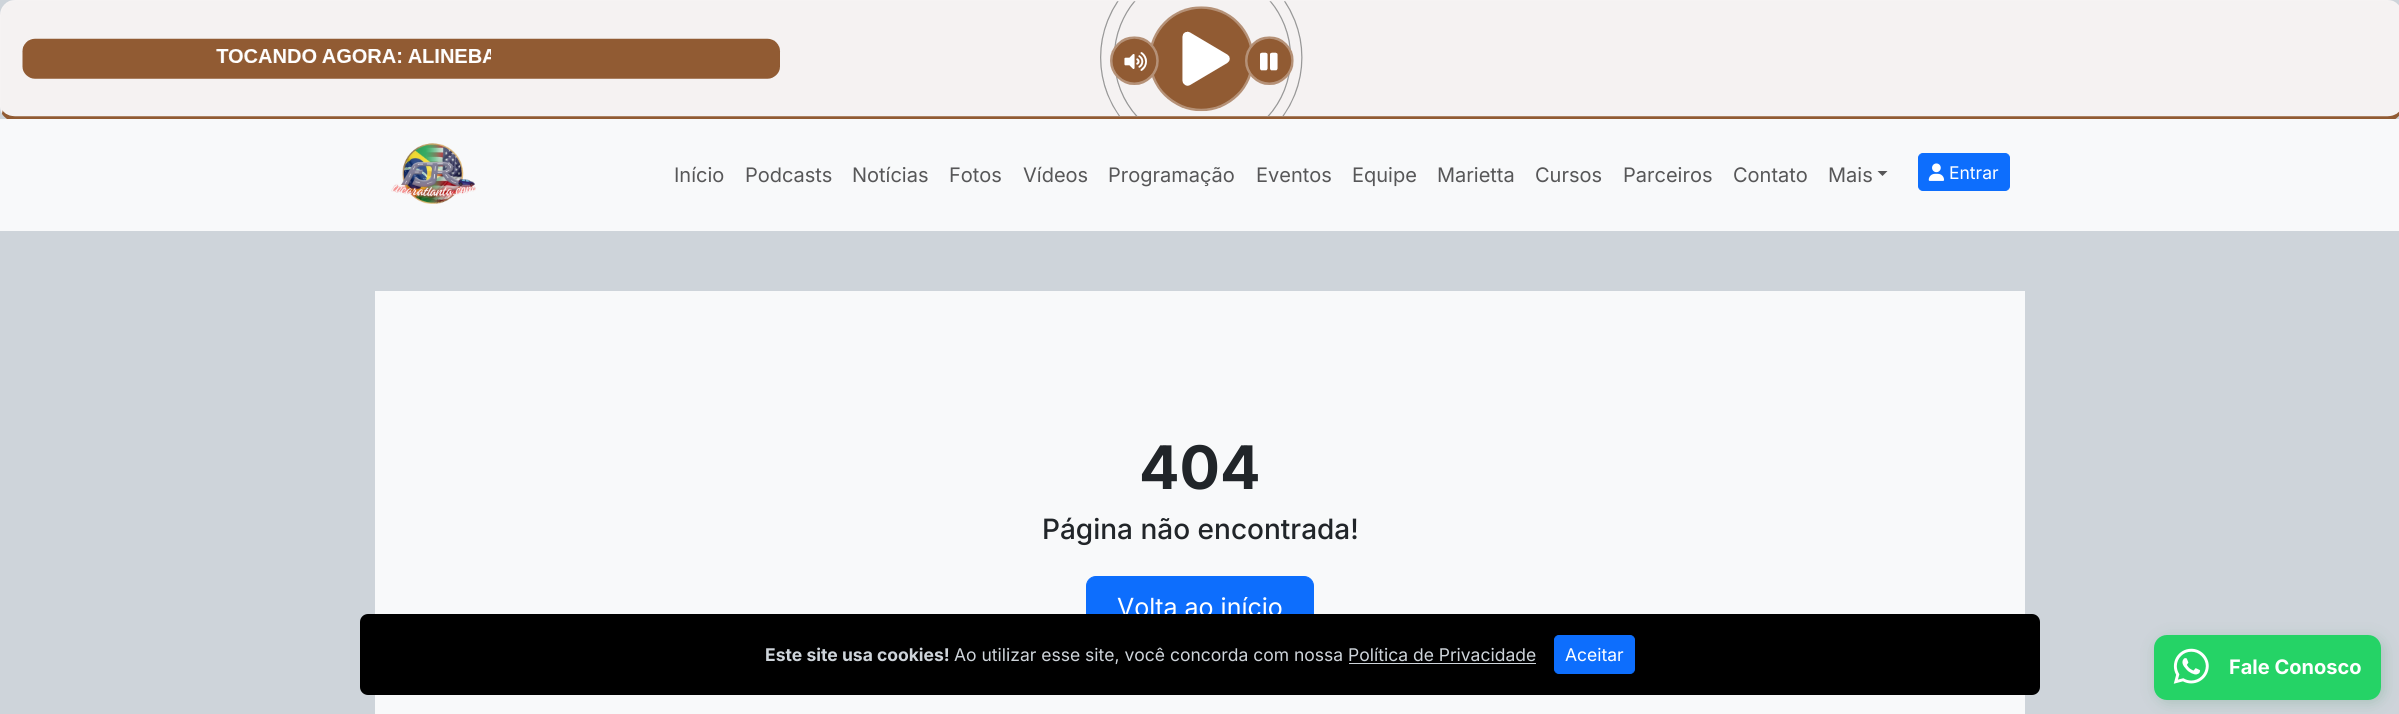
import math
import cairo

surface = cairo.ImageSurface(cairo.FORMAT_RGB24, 2399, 714)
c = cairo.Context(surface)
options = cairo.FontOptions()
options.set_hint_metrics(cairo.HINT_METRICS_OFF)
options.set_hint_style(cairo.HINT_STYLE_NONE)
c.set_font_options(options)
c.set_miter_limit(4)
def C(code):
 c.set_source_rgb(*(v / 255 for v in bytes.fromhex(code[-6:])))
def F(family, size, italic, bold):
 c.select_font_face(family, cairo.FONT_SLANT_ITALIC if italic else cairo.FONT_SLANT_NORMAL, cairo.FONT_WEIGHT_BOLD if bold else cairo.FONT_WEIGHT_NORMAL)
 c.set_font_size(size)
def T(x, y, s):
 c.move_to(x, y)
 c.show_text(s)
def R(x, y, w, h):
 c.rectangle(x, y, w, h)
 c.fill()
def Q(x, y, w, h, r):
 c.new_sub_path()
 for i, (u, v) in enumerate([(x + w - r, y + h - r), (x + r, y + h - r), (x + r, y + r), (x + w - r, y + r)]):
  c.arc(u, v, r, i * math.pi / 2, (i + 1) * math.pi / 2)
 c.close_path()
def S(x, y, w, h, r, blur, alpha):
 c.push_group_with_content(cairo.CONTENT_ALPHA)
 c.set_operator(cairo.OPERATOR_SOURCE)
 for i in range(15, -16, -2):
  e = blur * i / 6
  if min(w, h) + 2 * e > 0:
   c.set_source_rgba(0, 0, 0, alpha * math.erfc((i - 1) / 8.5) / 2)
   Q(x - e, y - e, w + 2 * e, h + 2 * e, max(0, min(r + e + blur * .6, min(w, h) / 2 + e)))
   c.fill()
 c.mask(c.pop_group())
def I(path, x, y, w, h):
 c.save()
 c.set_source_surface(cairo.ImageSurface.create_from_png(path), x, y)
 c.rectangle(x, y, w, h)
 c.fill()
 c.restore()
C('ced4da')
c.paint()
I('1.png',0,0,2399,119)
C('f8f9fa')
R(0,119,2399,112)
I('2.png',391,143,85,61)
F('Inter',20,0,0)
C('575758')
T(674,182,'Início')
T(745,182,'Podcasts')
T(852,182,'Notícias')
T(949,182,'Fotos')
T(1023,182,'Vídeos')
T(1108,182,'Programação')
T(1256,182,'Eventos')
T(1352,182,'Equipe')
T(1437,182,'Marietta')
T(1535,182,'Cursos')
T(1623,182,'Parceiros')
T(1733,182,'Contato')
T(1828,182,'Mais')
c.new_path()
c.move_to(1877.5,171)
c.line_to(1887.5,171)
c.line_to(1882.5,176)
c.close_path()
c.fill()
C('0d6efd')
Q(1918.5,153.5,91,37,4.5)
c.fill_preserve()
c.set_line_width(1)
c.stroke()
I('3.png',1928,163,17,18)
F('Inter',17.5,0,0)
C('ffffff')
T(1949,179,'Entrar')
C('f8f9fa')
R(375,291,1650,423)
F('Inter',60,0,1)
C('212529')
T(1139,489,'404')
F('Inter Medium',28,0,0)
T(1042,539,'Página não encontrada!')
C('0d6efd')
Q(1086.5,576.5,227,59,9.5)
c.fill_preserve()
c.stroke()
F('Inter',25,0,0)
C('ffffff')
T(1117,616,'Volta ao início')
C('000000')
Q(360,614,1680,81,8)
c.fill()
F('Inter',17.5,0,1)
C('ced4da')
T(765,661,'Este site usa cookies!')
F('Inter',17.5,0,0)
T(954,661,'Ao utilizar esse site, você concorda com nossa Política de Privacidade')
C('0d6efd')
Q(1554.5,635.5,80,38,4.5)
c.fill_preserve()
c.stroke()
C('ffffff')
T(1565,661,'Aceitar')
C('ced4da')
R(1349,663,187,1)
C('167c3c')
S(2156,638,228,65,13,7.5,.2)
C('25d366')
Q(2154,635,227,65,13)
c.fill()
I('4.png',2173,648,36,36)
F('Inter',20,0,1)
C('ffffff')
T(2229,674,'Fale Conosco')
surface.write_to_png('o.png')
